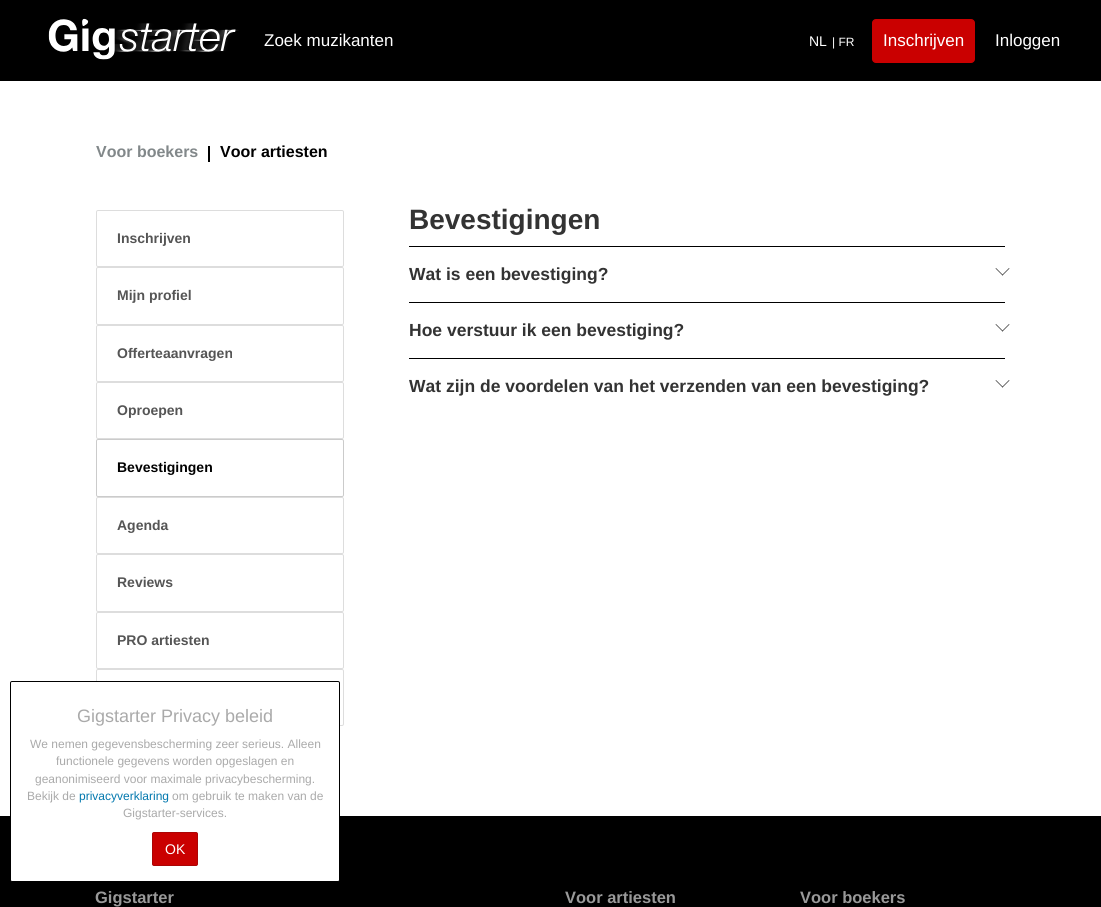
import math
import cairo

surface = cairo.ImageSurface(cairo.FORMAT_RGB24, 1101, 907)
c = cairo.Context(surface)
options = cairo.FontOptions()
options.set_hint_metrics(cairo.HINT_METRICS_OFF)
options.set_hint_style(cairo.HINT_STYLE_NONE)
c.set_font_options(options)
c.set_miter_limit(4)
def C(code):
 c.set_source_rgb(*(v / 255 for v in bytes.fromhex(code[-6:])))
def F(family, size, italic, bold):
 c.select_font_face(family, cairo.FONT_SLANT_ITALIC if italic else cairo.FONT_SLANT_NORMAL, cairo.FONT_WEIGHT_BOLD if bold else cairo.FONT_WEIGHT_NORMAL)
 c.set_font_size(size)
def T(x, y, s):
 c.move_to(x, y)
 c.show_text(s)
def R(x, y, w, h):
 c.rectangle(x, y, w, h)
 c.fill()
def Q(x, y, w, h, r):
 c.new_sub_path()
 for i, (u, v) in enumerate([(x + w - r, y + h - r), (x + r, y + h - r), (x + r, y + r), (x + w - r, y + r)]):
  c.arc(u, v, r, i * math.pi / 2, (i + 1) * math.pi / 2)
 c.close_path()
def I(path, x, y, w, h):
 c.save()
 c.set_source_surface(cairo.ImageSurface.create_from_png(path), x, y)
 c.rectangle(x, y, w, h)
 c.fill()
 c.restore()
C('000000')
c.paint()
I('1.png',48,18,191,42)
F('Liberation Sans',17,0,0)
C('ffffff')
T(264,46,'Zoek muzikanten')
F('Liberation Sans',14,0,0)
T(809,46,'NL')
F('Liberation Sans',12,0,0)
T(832,46,'| FR')
C('ca0000')
Q(872.5,19.5,102,43,3.5)
c.fill_preserve()
c.set_line_width(1)
c.stroke()
F('Liberation Sans',17,0,0)
C('ffffff')
T(883,46,'Inschrijven')
T(995,46,'Inloggen')
R(0,81,1101,735)
F('Liberation Sans',16,0,1)
C('82888a')
T(96,157,'Voor boekers')
C('000000')
R(208,146,2,16)
T(220,157,'Voor artiesten')
Q(96.5,210.5,247,56,1.5)
C('dddddd')
c.stroke()
F('Liberation Sans',14,0,1)
C('555555')
T(117,243,'Inschrijven')
Q(96.5,267.5,247,57,1.5)
C('dddddd')
c.stroke()
C('555555')
T(117,300,'Mijn profiel')
Q(96.5,325.5,247,56,1.5)
C('dddddd')
c.stroke()
C('555555')
T(117,358,'Offerteaanvragen')
Q(96.5,382.5,247,56,1.5)
C('dddddd')
c.stroke()
C('555555')
T(117,415,'Oproepen')
Q(96.5,439.5,247,57,1.5)
C('cbcbcb')
c.stroke()
C('000000')
T(117,472,'Bevestigingen')
Q(96.5,497.5,247,56,1.5)
C('dddddd')
c.stroke()
C('555555')
T(117,530,'Agenda')
Q(96.5,554.5,247,57,1.5)
C('dddddd')
c.stroke()
C('555555')
T(117,587,'Reviews')
Q(96.5,612.5,247,56,1.5)
C('dddddd')
c.stroke()
C('555555')
T(117,645,'PRO artiesten')
Q(96.5,669.5,247,56,1.5)
C('dddddd')
c.stroke()
F('Liberation Sans',28,0,1)
C('333333')
T(409,229,'Bevestigingen')
C('000000')
R(409,246,596,1)
F('Liberation Sans',17.5,0,1)
C('333333')
T(409,280,'Wat is een bevestiging?')
c.new_path()
c.move_to(1009.5,268.5)
c.line_to(1002.5,275.5)
c.line_to(1002,275)
c.line_to(1009,268)
c.close_path()
c.fill()
c.new_path()
c.move_to(1003,275)
c.line_to(1002.5,275.5)
c.line_to(995.5,268.5)
c.line_to(996,268)
c.close_path()
c.fill()
C('000000')
R(409,302,596,1)
C('333333')
T(409,336,'Hoe verstuur ik een bevestiging?')
c.new_path()
c.move_to(1009.5,324.5)
c.line_to(1002.5,331.5)
c.line_to(1002,331)
c.line_to(1009,324)
c.close_path()
c.fill()
c.new_path()
c.move_to(1003,331)
c.line_to(1002.5,331.5)
c.line_to(995.5,324.5)
c.line_to(996,324)
c.close_path()
c.fill()
C('000000')
R(409,358,596,1)
C('333333')
T(409,392,'Wat zijn de voordelen van het verzenden van een bevestiging?')
c.new_path()
c.move_to(1009.5,380.5)
c.line_to(1002.5,387.5)
c.line_to(1002,387)
c.line_to(1009,380)
c.close_path()
c.fill()
c.new_path()
c.move_to(1003,387)
c.line_to(1002.5,387.5)
c.line_to(995.5,380.5)
c.line_to(996,380)
c.close_path()
c.fill()
F('Liberation Sans',16.5,0,1)
C('999999')
T(95,903,'Gigstarter')
T(565,903,'Voor artiesten')
T(800,903,'Voor boekers')
C('ffffff')
Q(10.5,681.5,329,200,1.5)
c.fill_preserve()
C('000000')
c.stroke()
F('Liberation Sans',18,0,0)
C('aaaaaa')
T(77,722,'Gigstarter Privacy beleid')
F('Liberation Sans',12,0,0)
T(30,748,'We nemen gegevensbescherming zeer serieus. Alleen')
T(56,765,'functionele gegevens worden opgeslagen en')
T(35,783,'geanonimiseerd voor maximale privacybescherming.')
T(27,800,'Bekijk de')
C('0278ae')
T(79,800,'privacyverklaring')
C('aaaaaa')
T(172,800,'om gebruik te maken van de')
T(123,817,'Gigstarter-services.')
C('ca0000')
Q(152.5,832.5,45,33,1.5)
c.fill_preserve()
C('ab0505')
c.stroke()
F('Liberation Sans',14,0,0)
C('ffffff')
T(165,854,'OK')
surface.write_to_png('o.png')
